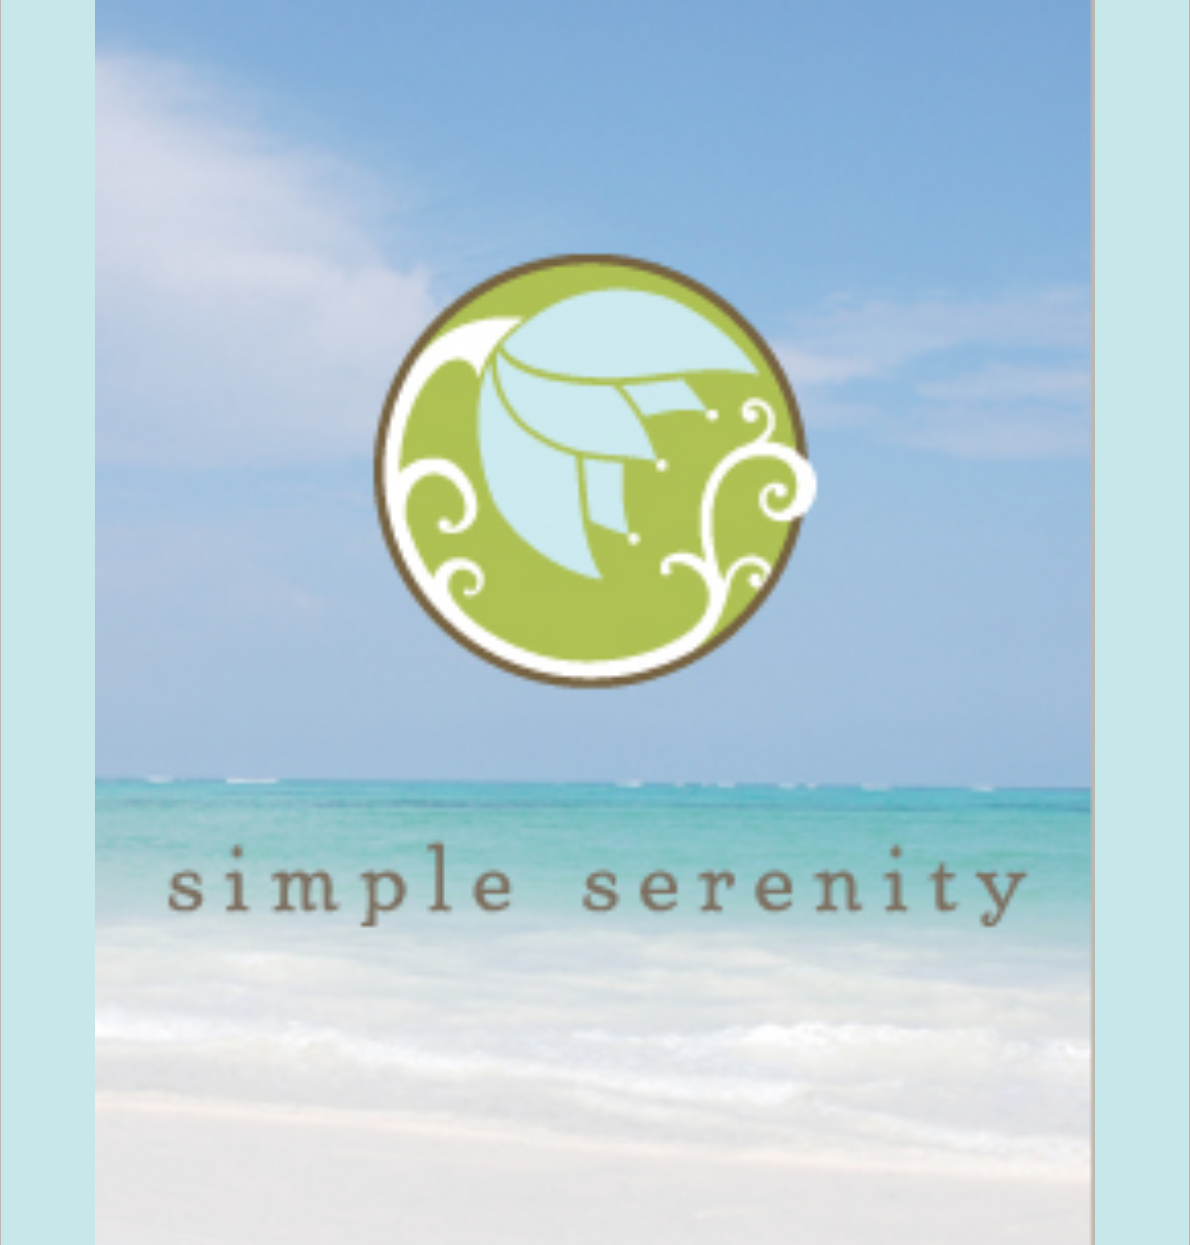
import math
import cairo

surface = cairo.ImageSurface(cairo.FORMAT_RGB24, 1190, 1245)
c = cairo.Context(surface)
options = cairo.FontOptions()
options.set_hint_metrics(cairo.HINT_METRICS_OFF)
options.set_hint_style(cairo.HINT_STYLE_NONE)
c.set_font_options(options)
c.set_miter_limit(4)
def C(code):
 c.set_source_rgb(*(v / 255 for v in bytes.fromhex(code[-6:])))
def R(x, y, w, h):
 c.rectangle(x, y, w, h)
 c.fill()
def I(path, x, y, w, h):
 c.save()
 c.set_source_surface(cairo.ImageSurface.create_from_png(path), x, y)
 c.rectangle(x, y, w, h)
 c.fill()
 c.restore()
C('c6e8eb')
c.paint()
C('bdb7af')
R(1189,0,1,1245)
R(0,0,1,1245)
I('1.png',95,0,1000,1245)
surface.write_to_png('o.png')
